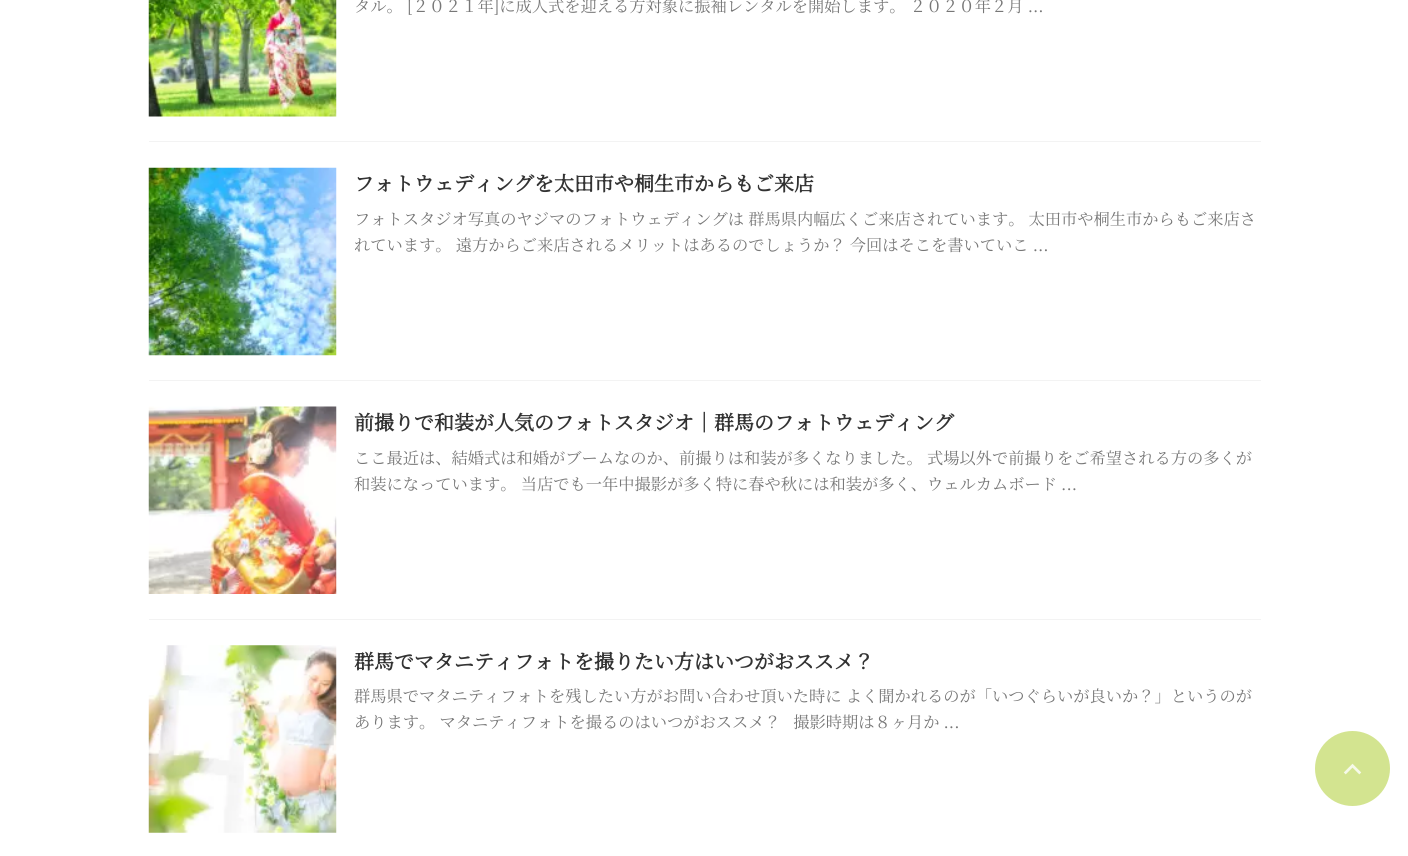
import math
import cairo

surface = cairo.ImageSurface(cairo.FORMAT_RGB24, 1408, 856)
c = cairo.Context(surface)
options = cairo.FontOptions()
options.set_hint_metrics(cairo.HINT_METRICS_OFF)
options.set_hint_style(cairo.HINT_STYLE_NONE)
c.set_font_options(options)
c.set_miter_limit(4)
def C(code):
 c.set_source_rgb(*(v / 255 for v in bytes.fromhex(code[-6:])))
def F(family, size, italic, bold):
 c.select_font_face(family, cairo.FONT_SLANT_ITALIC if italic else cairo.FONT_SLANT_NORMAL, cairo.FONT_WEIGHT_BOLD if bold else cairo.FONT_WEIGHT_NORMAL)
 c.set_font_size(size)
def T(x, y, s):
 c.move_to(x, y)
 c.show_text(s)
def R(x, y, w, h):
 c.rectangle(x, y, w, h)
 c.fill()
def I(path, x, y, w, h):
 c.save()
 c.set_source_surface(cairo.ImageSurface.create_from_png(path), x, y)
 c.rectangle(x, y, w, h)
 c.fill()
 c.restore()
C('ffffff')
c.paint()
C('f3f3f3')
R(149,141,1112,1)
I('1.png',148,0,189,117)
F('Noto Serif JP ExtraLight',16.25,0,0)
C('777777')
T(354,12,'タル。 [２０２１年]に成人式を迎える方対象に振袖レンタルを開始します。 ２０２０年２月 ...')
C('f3f3f3')
R(149,380,1112,1)
I('2.png',148,167,189,189)
F('Noto Serif JP',20,0,1)
C('333333')
T(354,191,'フォトウェディングを太田市や桐生市からもご来店')
F('Noto Serif JP ExtraLight',16.25,0,0)
C('777777')
T(354,225,'フォトスタジオ写真のヤジマのフォトウェディングは 群馬県内幅広くご来店されています。 太田市や桐生市からもご来店さ')
T(354,251,'れています。 遠方からご来店されるメリットはあるのでしょうか？ 今回はそこを書いていこ ...')
C('f3f3f3')
R(149,619,1112,1)
I('3.png',148,406,189,188)
F('Noto Serif JP',20,0,1)
C('333333')
T(354,430,'前撮りで和装が人気のフォトスタジオ｜群馬のフォトウェディング')
F('Noto Serif JP ExtraLight',16.25,0,0)
C('777777')
T(354,464,'ここ最近は、結婚式は和婚がブームなのか、前撮りは和装が多くなりました。 式場以外で前撮りをご希望される方の多くが')
T(354,490,'和装になっています。 当店でも一年中撮影が多く特に春や秋には和装が多く、ウェルカムボード ...')
I('4.png',148,645,189,188)
F('Noto Serif JP',20,0,1)
C('333333')
T(354,669,'群馬でマタニティフォトを撮りたい方はいつがおススメ？')
F('Noto Serif JP ExtraLight',16.25,0,0)
C('777777')
T(354,702,'群馬県でマタニティフォトを残したい方がお問い合わせ頂いた時に よく聞かれるのが「いつぐらいが良いか？」というのが')
T(354,728,'あります。 マタニティフォトを撮るのはいつがおススメ？   撮影時期は８ヶ月か ...')
C('d3e490')
c.new_path()
c.arc(1352.5,768.5,37.5,0,2 * math.pi)
c.fill()
I('5.png',1343,763,19,12)
surface.write_to_png('o.png')
